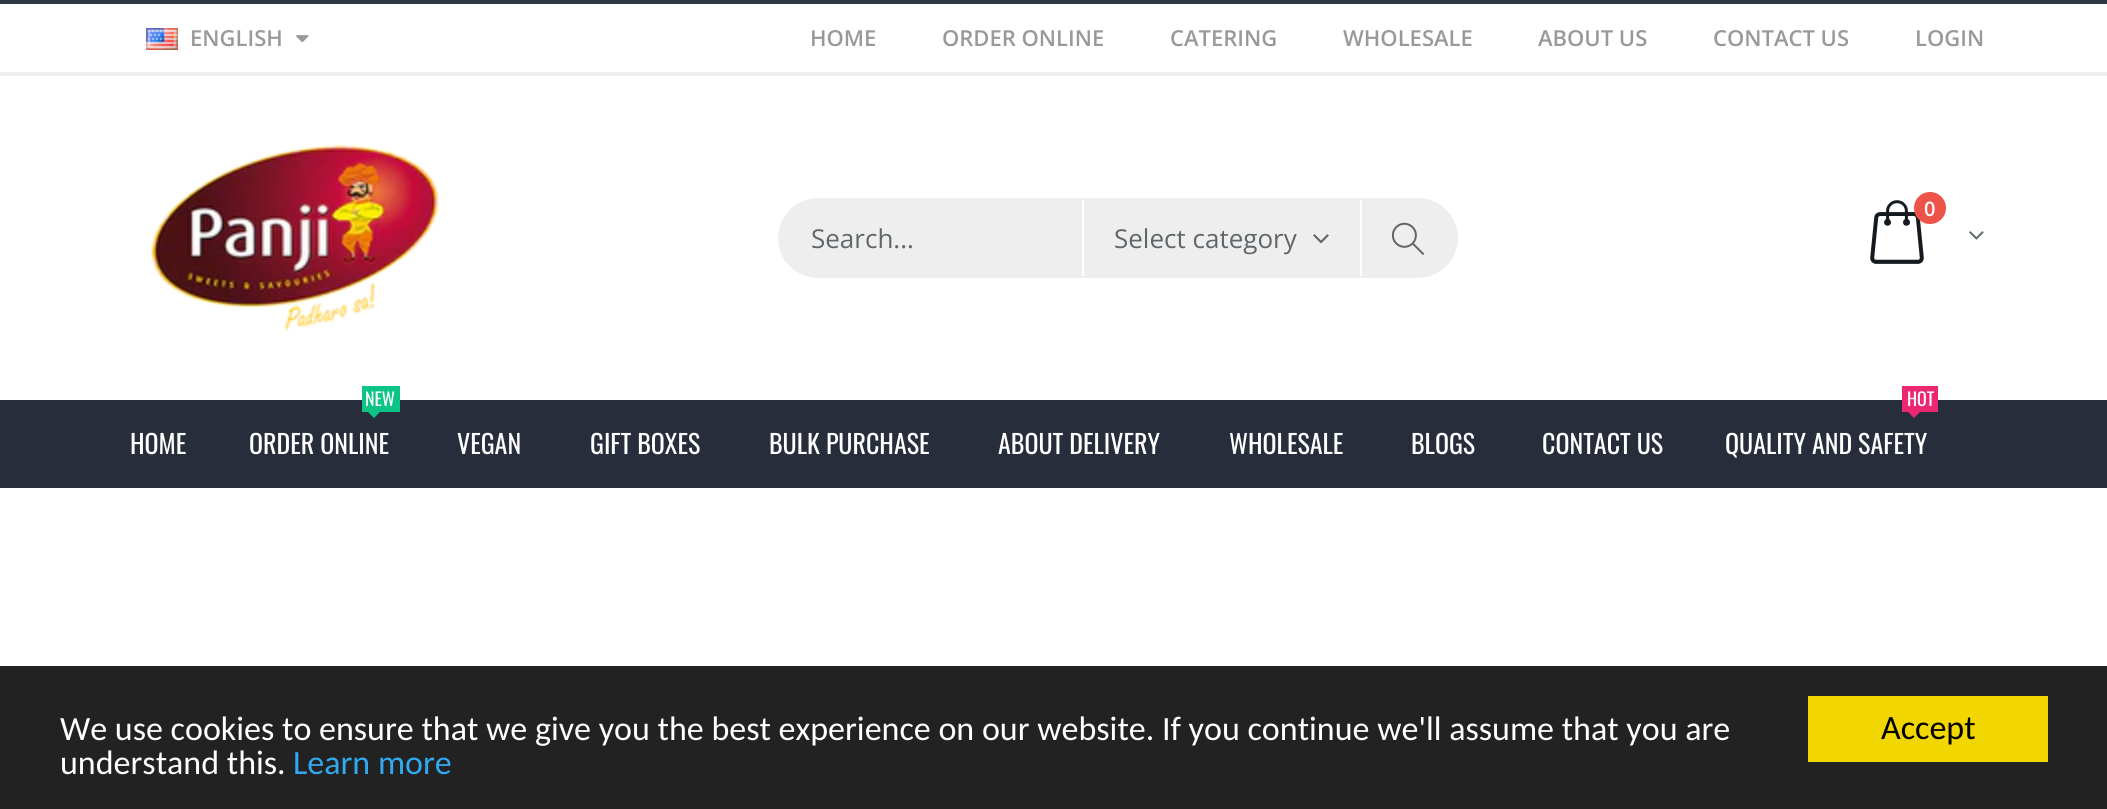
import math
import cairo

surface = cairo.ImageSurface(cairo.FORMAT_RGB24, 2107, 809)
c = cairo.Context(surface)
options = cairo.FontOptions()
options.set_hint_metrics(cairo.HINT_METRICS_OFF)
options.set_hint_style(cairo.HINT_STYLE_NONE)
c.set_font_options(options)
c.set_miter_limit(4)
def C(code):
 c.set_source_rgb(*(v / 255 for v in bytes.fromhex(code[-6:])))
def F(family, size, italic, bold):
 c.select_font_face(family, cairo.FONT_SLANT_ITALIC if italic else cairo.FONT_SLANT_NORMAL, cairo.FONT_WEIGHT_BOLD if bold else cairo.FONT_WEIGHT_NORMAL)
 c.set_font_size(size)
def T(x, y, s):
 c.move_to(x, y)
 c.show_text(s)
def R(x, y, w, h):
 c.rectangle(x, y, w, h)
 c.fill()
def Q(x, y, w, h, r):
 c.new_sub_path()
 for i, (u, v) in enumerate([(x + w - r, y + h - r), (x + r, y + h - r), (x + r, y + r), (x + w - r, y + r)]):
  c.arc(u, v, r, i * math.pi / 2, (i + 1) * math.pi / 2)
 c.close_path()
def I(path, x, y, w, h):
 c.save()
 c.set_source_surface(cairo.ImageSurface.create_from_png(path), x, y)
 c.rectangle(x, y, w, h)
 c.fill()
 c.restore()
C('ffffff')
c.paint()
C('2f3946')
R(0,0,2107,4)
C('eeeeee')
R(0,72,2107,4)
I('1.png',146,28,32,22)
F('Open Sans SemiBold',22,0,0)
C('999999')
T(190,46,'ENGLISH')
I('2.png',296,35,13,8)
T(810,46,'HOME')
T(942,46,'ORDER ONLINE')
T(1170,46,'CATERING')
T(1343,46,'WHOLESALE')
T(1538,46,'ABOUT US')
T(1713,46,'CONTACT US')
T(1915,46,'LOGIN')
I('3.png',150,144,289,187)
I('4.png',1870,200,54,64)
C('ed5348')
c.arc(1930,208,16,0,2 * math.pi)
c.fill()
F('Open Sans SemiBold',20,0,0)
C('ffffff')
T(1924,216,'0')
I('5.png',1969,231,15,9)
C('eeeeee')
Q(778,198,680,80,40)
c.fill()
F('Open Sans',26,0,0)
C('606669')
T(811,248,'Search...')
C('ffffff')
R(1360,200,2,76)
R(1082,200,2,76)
C('606669')
T(1114,248,'Select category')
I('6.png',1313,234,16,10)
I('7.png',1391,222,33,33)
C('282d3b')
R(0,400,2107,88)
F('Oswald',26,0,0)
C('ffffff')
T(130,454,'HOME')
C('0cc485')
R(362,386,38,26)
F('Oswald',18,0,0)
C('ffffff')
T(365,406,'NEW')
C('0cc485')
c.new_path()
c.move_to(368,412)
c.line_to(380,412)
c.line_to(374,418)
c.close_path()
c.fill()
F('Oswald',26,0,0)
C('ffffff')
T(249,454,'ORDER ONLINE')
T(457,454,'VEGAN')
T(590,454,'GIFT BOXES')
T(769,454,'BULK PURCHASE')
T(998,454,'ABOUT DELIVERY')
T(1229,454,'WHOLESALE')
T(1411,454,'BLOGS')
T(1542,454,'CONTACT US')
C('eb2771')
R(1902,386,36,26)
F('Oswald',18,0,0)
C('ffffff')
T(1907,406,'HOT')
C('eb2771')
c.new_path()
c.move_to(1908,412)
c.line_to(1920,412)
c.line_to(1914,418)
c.close_path()
c.fill()
F('Oswald',26,0,0)
C('ffffff')
T(1725,454,'QUALITY AND SAFETY')
C('222222')
R(0,666,2107,143)
F('Carlito',34,0,0)
C('ffffff')
T(60,740,'We use cookies to ensure that we give you the best experience on our website. If you continue we\'ll assume that you are')
T(60,774,'understand this.')
C('31a8f0')
T(293,774,'Learn more')
C('f1d600')
R(1808,696,240,66)
C('000000')
T(1881,739,'Accept')
surface.write_to_png('o.png')
